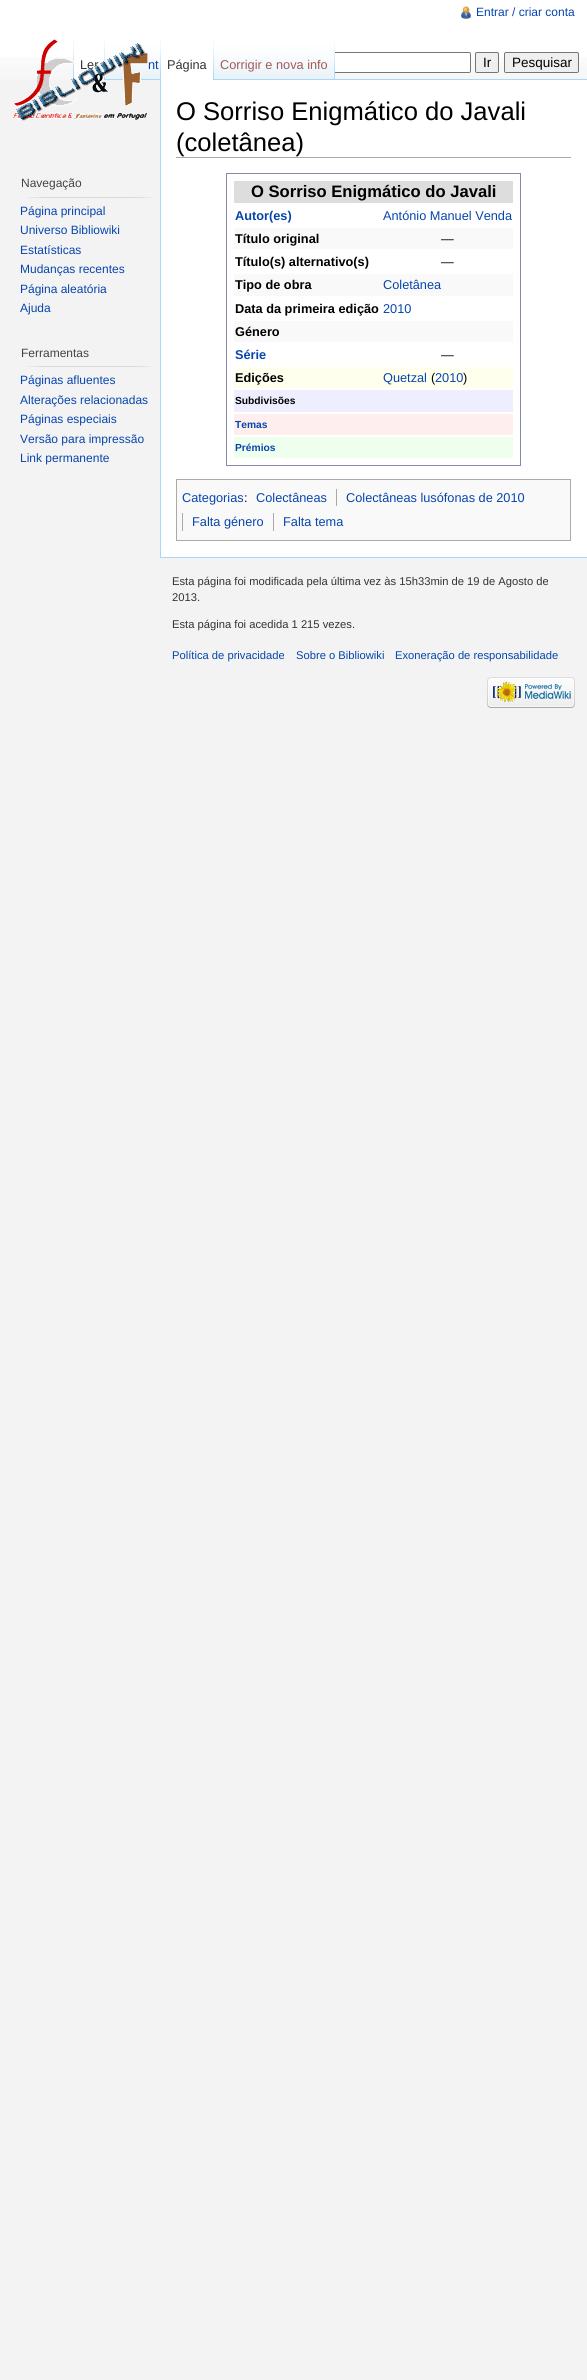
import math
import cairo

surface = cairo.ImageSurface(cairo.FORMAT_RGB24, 587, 2380)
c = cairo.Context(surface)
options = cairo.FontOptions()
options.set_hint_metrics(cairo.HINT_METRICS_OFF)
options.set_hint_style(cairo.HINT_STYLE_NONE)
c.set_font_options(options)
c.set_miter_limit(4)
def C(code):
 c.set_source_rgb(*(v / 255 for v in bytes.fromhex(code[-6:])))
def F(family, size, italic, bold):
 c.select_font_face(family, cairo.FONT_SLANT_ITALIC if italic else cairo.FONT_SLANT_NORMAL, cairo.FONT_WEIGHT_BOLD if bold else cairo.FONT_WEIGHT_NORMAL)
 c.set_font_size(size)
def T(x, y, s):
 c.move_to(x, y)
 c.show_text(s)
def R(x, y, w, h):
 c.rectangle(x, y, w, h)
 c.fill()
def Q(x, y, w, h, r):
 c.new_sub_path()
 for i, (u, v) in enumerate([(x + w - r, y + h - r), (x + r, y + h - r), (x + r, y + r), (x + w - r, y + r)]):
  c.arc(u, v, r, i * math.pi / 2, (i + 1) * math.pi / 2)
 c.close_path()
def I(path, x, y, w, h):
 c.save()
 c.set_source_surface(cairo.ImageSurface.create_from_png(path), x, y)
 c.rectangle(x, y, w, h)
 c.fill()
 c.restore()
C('f3f3f3')
c.paint()
C('ffffff')
R(0,0,587,57)
I('1.png',0,57,587,23)
I('2.png',461,6,10,13)
F('Liberation Sans',12,0,0)
C('0645ad')
T(476,16,'Entrar / criar conta')
I('3.png',73,40,1,38)
C('ffffff')
R(74,57,30,23)
I('4.png',104,40,1,40)
F('Liberation Sans',12.75,0,0)
C('333333')
T(80,69,'Ler')
I('5.png',105,40,56,40)
C('0645ad')
T(148,69,'nt')
C('ffffff')
Q(286.5,52.5,184,20,1.5)
c.fill_preserve()
C('767676')
c.set_line_width(1)
c.stroke()
C('efefef')
Q(475.5,52.5,23,20,1.5)
c.fill_preserve()
C('767676')
c.stroke()
F('Liberation Sans',13.5,0,0)
C('000000')
T(483,67,'Ir')
C('efefef')
Q(504.5,52.5,74,20,1.5)
c.fill_preserve()
C('767676')
c.stroke()
C('000000')
T(512,67,'Pesquisar')
I('6.png',160,40,1,39)
C('ffffff')
R(161,57,52,23)
I('4.png',213,40,1,40)
F('Liberation Sans',12.75,0,0)
C('333333')
T(167,69,'Página')
I('7.png',214,40,121,40)
I('8.png',334,40,1,39)
C('a55858')
T(220,69,'Corrigir e nova info')
C('a7d7f9')
R(335,79,252,1)
I('9.png',13,39,135,82)
F('Liberation Sans',12,0,0)
C('444444')
T(21,187,'Navegação')
I('10.png',27,197,127,1)
C('0645ad')
T(20,215,'Página principal')
T(20,234,'Universo Bibliowiki')
T(20,254,'Estatísticas')
T(20,273,'Mudanças recentes')
T(20,293,'Página aleatória')
T(20,312,'Ajuda')
C('444444')
T(21,357,'Ferramentas')
I('10.png',27,366,127,1)
C('0645ad')
T(20,384,'Páginas afluentes')
T(20,404,'Alterações relacionadas')
T(20,423,'Páginas especiais')
T(20,443,'Versão para impressão')
T(20,462,'Link permanente')
C('ffffff')
R(161,80,426,477)
C('a7d7f9')
R(160,80,1,477)
C('aaaaaa')
R(176,157,395,1)
F('Liberation Sans',25.6,0,0)
C('000000')
T(176,120,'O Sorriso Enigmático do Javali')
T(176,151,'(coletânea)')
c.rectangle(226.5,173.5,294,292)
C('8888aa')
c.stroke()
C('dddddd')
R(234,181,279,22)
F('Liberation Sans',16.6,0,1)
C('000000')
T(251,197,'O Sorriso Enigmático do Javali')
F('Liberation Sans',12.75,0,1)
C('0645ad')
T(235,220,'Autor(es)')
F('Liberation Sans',12.75,0,0)
T(383,220,'António Manuel Venda')
C('f9f9f9')
R(234,228,279,21)
F('Liberation Sans',12.75,0,1)
C('000000')
T(235,243,'Título original')
F('Liberation Sans',12.75,1,0)
T(441,243,'—')
F('Liberation Sans',12.75,0,1)
T(235,266,'Título(s) alternativo(s)')
F('Liberation Sans',12.75,1,0)
T(441,266,'—')
C('f9f9f9')
R(234,274,279,22)
F('Liberation Sans',12.75,0,1)
C('000000')
T(235,289,'Tipo de obra')
F('Liberation Sans',12.75,0,0)
C('0645ad')
T(383,289,'Coletânea')
F('Liberation Sans',12.75,0,1)
C('000000')
T(235,313,'Data da primeira edição')
F('Liberation Sans',12.75,0,0)
C('0645ad')
T(383,313,'2010')
C('f9f9f9')
R(234,321,279,21)
F('Liberation Sans',12.75,0,1)
C('000000')
T(235,336,'Género')
C('0645ad')
T(235,359,'Série')
F('Liberation Sans',12.75,0,0)
C('000000')
T(441,359,'—')
C('ffffee')
R(234,367,279,21)
F('Liberation Sans',12.75,0,1)
C('000000')
T(235,382,'Edições')
F('Liberation Sans',12.75,0,0)
C('0645ad')
T(383,382,'Quetzal')
C('000000')
T(431,382,'(')
C('0645ad')
T(435,382,'2010')
C('000000')
T(463,382,')')
C('eeeeff')
R(234,390,279,22)
F('Liberation Sans',10.25,0,1)
C('000000')
T(235,404,'Subdivisões')
C('ffeeee')
R(234,414,279,21)
C('0645ad')
T(235,428,'Temas')
C('eeffee')
R(234,437,279,21)
C('0645ad')
T(235,451,'Prémios')
C('f9f9f9')
c.rectangle(176.5,479.5,394,61)
c.fill_preserve()
C('aaaaaa')
c.stroke()
F('Liberation Sans',12.75,0,0)
C('0645ad')
T(182,502,'Categorias')
T(256,502,'Colectâneas')
C('aaaaaa')
R(336,489,1,17)
C('0645ad')
T(346,502,'Colectâneas lusófonas de 2010')
C('aaaaaa')
R(182,513,1,18)
C('0645ad')
T(192,526,'Falta género')
C('aaaaaa')
R(273,513,1,18)
C('0645ad')
T(283,526,'Falta tema')
C('000000')
T(244,502,':')
C('a7d7f9')
R(160,557,427,1)
F('Liberation Sans',11.2,0,0)
C('333333')
T(172,585,'Esta página foi modificada pela última vez às 15h33min de 19 de Agosto de')
T(172,601,'2013.')
T(172,628,'Esta página foi acedida 1 215 vezes.')
C('0645ad')
T(172,659,'Política de privacidade')
T(296,659,'Sobre o Bibliowiki')
T(395,659,'Exoneração de responsabilidade')
I('11.png',487,677,88,31)
surface.write_to_png('o.png')
